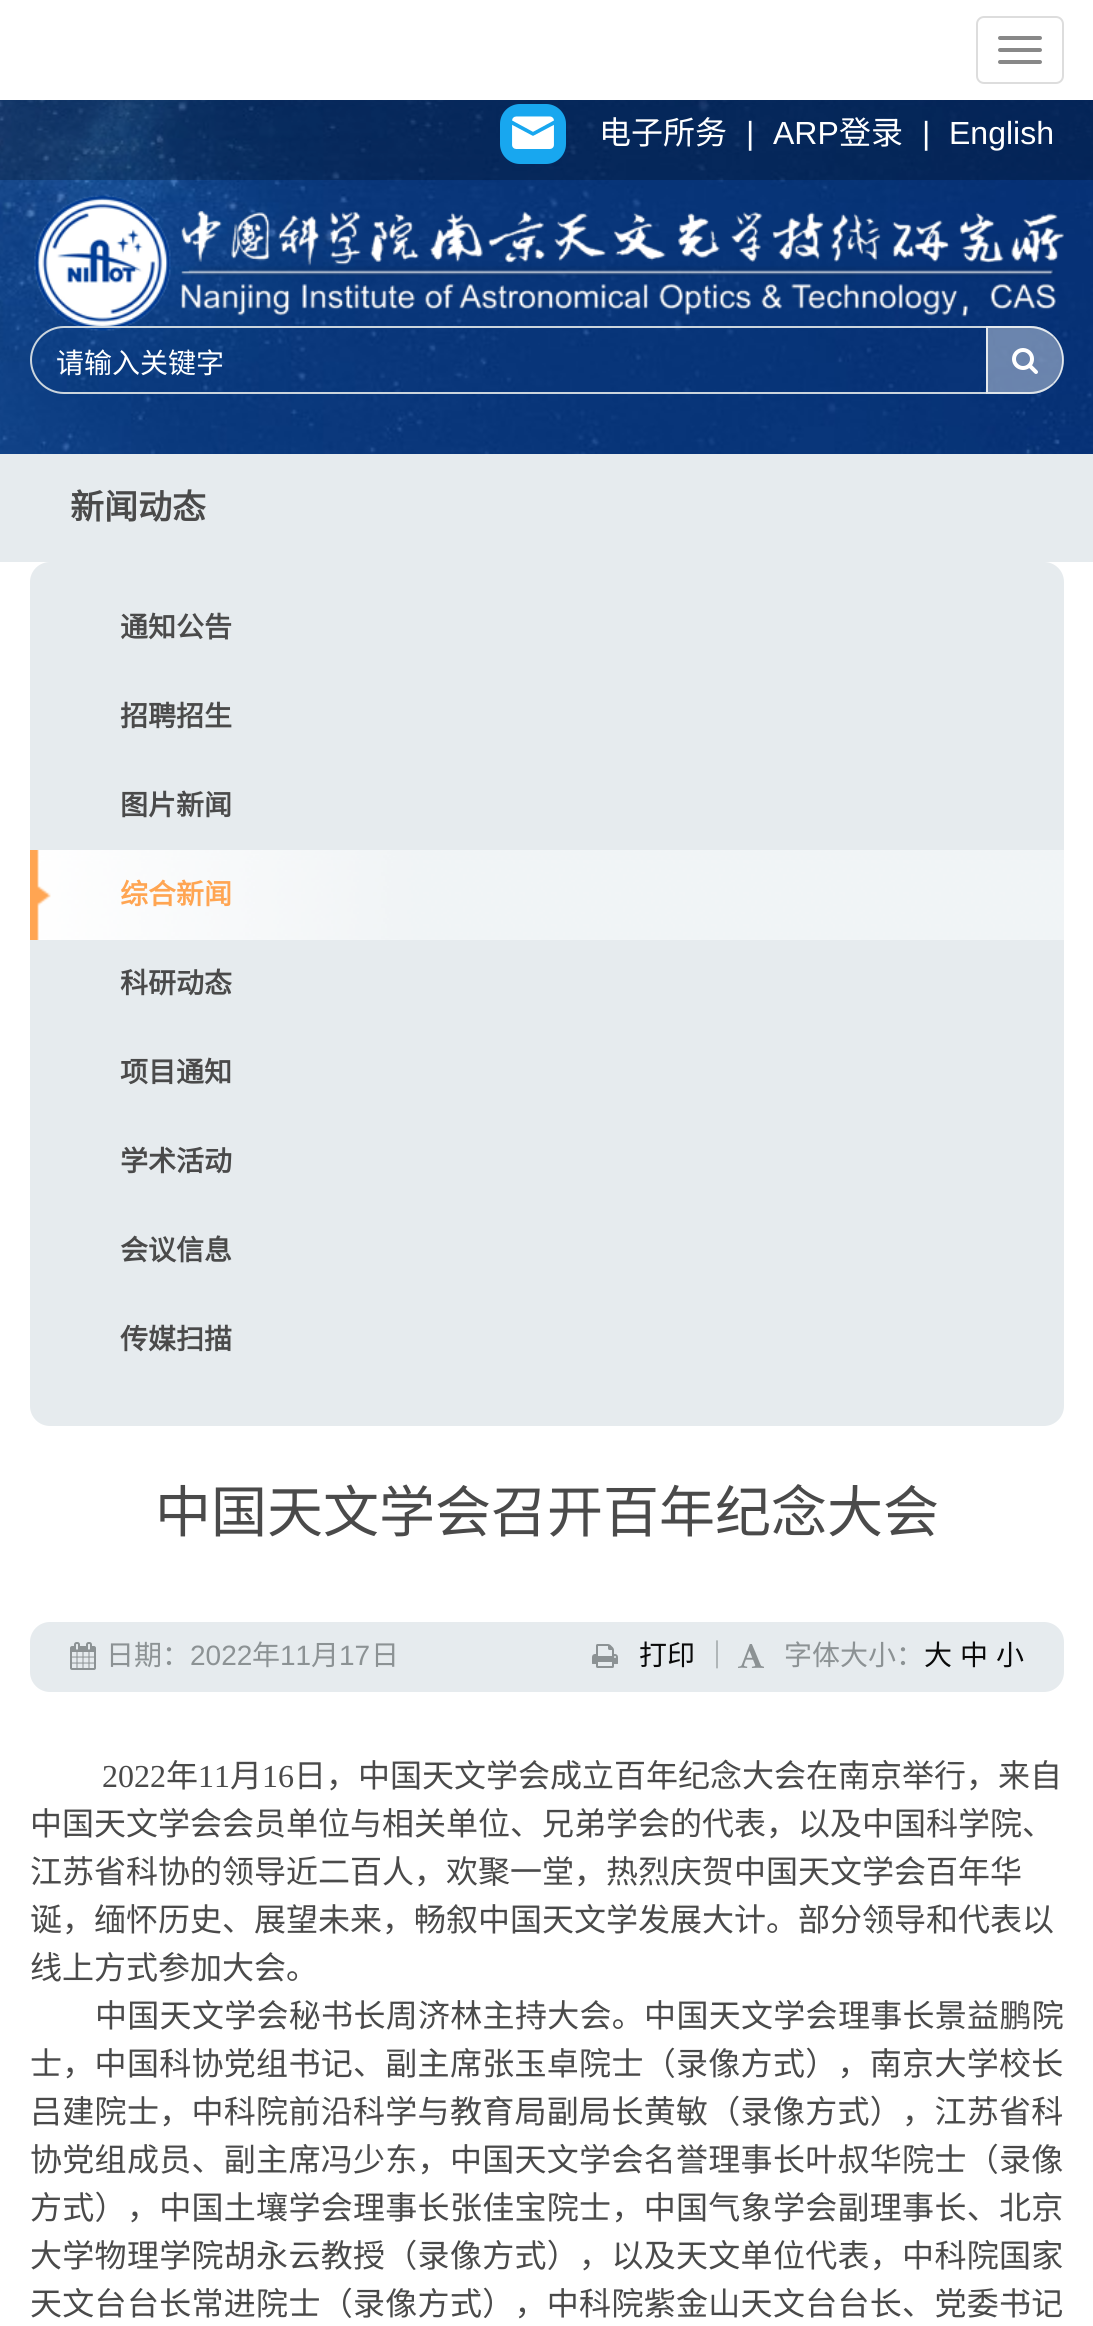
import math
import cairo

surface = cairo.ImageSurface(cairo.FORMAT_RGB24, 1093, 2326)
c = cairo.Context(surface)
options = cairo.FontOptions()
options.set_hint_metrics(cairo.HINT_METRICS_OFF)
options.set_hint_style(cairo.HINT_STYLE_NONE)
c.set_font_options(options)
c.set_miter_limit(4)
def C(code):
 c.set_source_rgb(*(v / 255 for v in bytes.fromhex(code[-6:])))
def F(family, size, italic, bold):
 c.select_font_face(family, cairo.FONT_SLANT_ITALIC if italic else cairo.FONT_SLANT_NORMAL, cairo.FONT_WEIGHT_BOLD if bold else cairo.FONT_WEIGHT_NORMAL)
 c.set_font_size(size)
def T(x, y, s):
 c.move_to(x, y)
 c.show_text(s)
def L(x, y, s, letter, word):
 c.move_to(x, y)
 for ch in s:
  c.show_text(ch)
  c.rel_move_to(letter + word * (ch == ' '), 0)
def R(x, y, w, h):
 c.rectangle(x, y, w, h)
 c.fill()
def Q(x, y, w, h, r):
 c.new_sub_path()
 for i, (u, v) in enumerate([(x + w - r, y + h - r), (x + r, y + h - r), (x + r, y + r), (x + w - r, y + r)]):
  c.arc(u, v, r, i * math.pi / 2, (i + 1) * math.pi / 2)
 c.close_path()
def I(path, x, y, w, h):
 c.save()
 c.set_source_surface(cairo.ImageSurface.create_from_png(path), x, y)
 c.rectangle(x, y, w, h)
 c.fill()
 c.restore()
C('ffffff')
c.paint()
I('1.png',0,100,1093,354)
Q(977,17,86,66,7)
C('dddddd')
c.stroke()
C('888888')
Q(998,36,44,4,2)
c.fill()
Q(998,48,44,4,2)
c.fill()
Q(998,60,44,4,2)
c.fill()
c.set_source_rgba(0,0,0,0.25)
R(0,100,1093,80)
C('18a7ef')
Q(500,104,66,60,20)
c.fill()
I('2.png',512,116,42,33)
F('Noto Sans CJK SC',32,0,0)
C('ffffff')
T(599,144,'电子所务')
F('Liberation Sans',32,0,0)
T(746,144,'|')
T(773,144,'ARP')
F('Noto Sans CJK SC',32,0,0)
T(839,144,'登录')
F('Liberation Sans',32,0,0)
T(922,144,'|')
T(949,144,'English')
I('3.png',34,195,1030,136)
c.new_path()
c.move_to(64,327)
c.line_to(987,327)
c.line_to(987,393)
c.line_to(64,393)
c.curve_to(46,393,31,378,31,360)
c.curve_to(31,342,46,327,64,327)
c.close_path()
C('cbd5dd')
c.stroke()
F('Noto Sans CJK SC',28,0,0)
C('ffffff')
T(56,373,'请输入关键字')
c.set_source_rgba(1,1,1,0.4)
c.new_path()
c.move_to(986,326)
c.line_to(1030,326)
c.curve_to(1049,326,1064,341,1064,360)
c.curve_to(1064,379,1049,394,1030,394)
c.line_to(986,394)
c.close_path()
c.fill()
C('e4e9ed')
c.new_path()
c.move_to(986,326)
c.line_to(988,328)
c.line_to(1030,328)
c.curve_to(1039,328,1047,332,1053,337)
c.line_to(1054,336)
c.curve_to(1048,330,1040,326,1030,326)
c.close_path()
c.fill()
c.new_path()
c.move_to(1054,336)
c.curve_to(1067,349,1067,371,1054,384)
c.line_to(1053,383)
c.curve_to(1065,371,1065,349,1053,337)
c.close_path()
c.fill()
C('dee4e9')
c.new_path()
c.move_to(1030,394)
c.curve_to(1040,394,1048,390,1054,384)
c.line_to(1053,383)
c.curve_to(1047,388,1039,392,1030,392)
c.line_to(988,392)
c.line_to(986,394)
c.close_path()
c.fill()
C('e4e9ed')
c.new_path()
c.move_to(986,326)
c.line_to(986,394)
c.line_to(988,392)
c.line_to(988,328)
c.close_path()
c.fill()
I('4.png',1012,348,26,26)
C('e6ebee')
R(0,454,1093,108)
F('Noto Sans CJK SC',34,0,1)
C('4a4a4a')
T(70,519,'新闻动态')
C('e6ebee')
Q(30,562,1034,864,20)
c.fill()
F('Noto Sans CJK SC',28,0,1)
C('4a4a4a')
T(120,637,'通知公告')
T(120,726,'招聘招生')
T(120,815,'图片新闻')
I('5.png',30,850,1034,90)
C('ffa552')
T(120,904,'综合新闻')
C('4a4a4a')
T(120,993,'科研动态')
T(120,1082,'项目通知')
T(120,1171,'学术活动')
T(120,1260,'会议信息')
T(120,1349,'传媒扫描')
F('Noto Sans CJK SC',56,0,0)
T(155,1532,'中国天文学会召开百年纪念大会')
C('e6ebee')
Q(30,1622,1034,70,20)
c.fill()
I('6.png',70,1642,26,28)
F('Noto Sans CJK SC',28,0,0)
C('8c9294')
T(106,1665,'日期：')
F('Liberation Sans',28,0,0)
T(190,1665,'2022')
F('Noto Sans CJK SC',28,0,0)
T(252,1665,'年')
F('Liberation Sans',28,0,0)
T(280,1665,'11')
F('Noto Sans CJK SC',28,0,0)
T(311,1665,'月')
F('Liberation Sans',28,0,0)
T(339,1665,'17')
F('Noto Sans CJK SC',28,0,0)
T(371,1665,'日')
I('7.png',592,1644,26,24)
C('0a0a0a')
T(639,1665,'打印')
C('8c9294')
T(703,1665,'｜')
I('8.png',738,1644,26,24)
T(784,1665,'字体大小：')
C('0a0a0a')
T(924,1665,'大')
T(960,1665,'中')
T(996,1665,'小')
F('Liberation Serif',32,0,0)
C('4a4a4a')
T(102,1787,'2022')
F('Noto Sans CJK SC',32,0,0)
T(166,1787,'年')
F('Liberation Serif',32,0,0)
T(198,1787,'11')
F('Noto Sans CJK SC',32,0,0)
T(230,1787,'月')
F('Liberation Serif',32,0,0)
T(262,1787,'16')
F('Noto Sans CJK SC',32,0,0)
T(294,1787,'日，中国天文学会成立百年纪念大会在南京举行，来自')
T(30,1835,'中国天文学会会员单位与相关单位、兄弟学会的代表，以及中国科学院、')
T(30,1883,'江苏省科协的领导近二百人，欢聚一堂，热烈庆贺中国天文学会百年华')
T(30,1931,'诞，缅怀历史、展望未来，畅叙中国天文学发展大计。部分领导和代表以')
T(30,1979,'线上方式参加大会。')
L(95,2027,'中国天文学会秘书长周济林主持大会。中国天文学会理事长景益鹏院',.3,0)
L(30,2075,'士，中国科协党组书记、副主席张玉卓院士（录像方式），南京大学校长',.3,0)
L(30,2123,'吕建院士，中科院前沿科学与教育局副局长黄敏（录像方式），江苏省科',.3,0)
L(30,2171,'协党组成员、副主席冯少东，中国天文学会名誉理事长叶叔华院士（录像',.3,0)
L(30,2219,'方式），中国土壤学会理事长张佳宝院士，中国气象学会副理事长、北京',.3,0)
L(30,2267,'大学物理学院胡永云教授（录像方式），以及天文单位代表，中科院国家',.3,0)
L(30,2315,'天文台台长常进院士（录像方式），中科院紫金山天文台台长、党委书记',.3,0)
surface.write_to_png('o.png')
